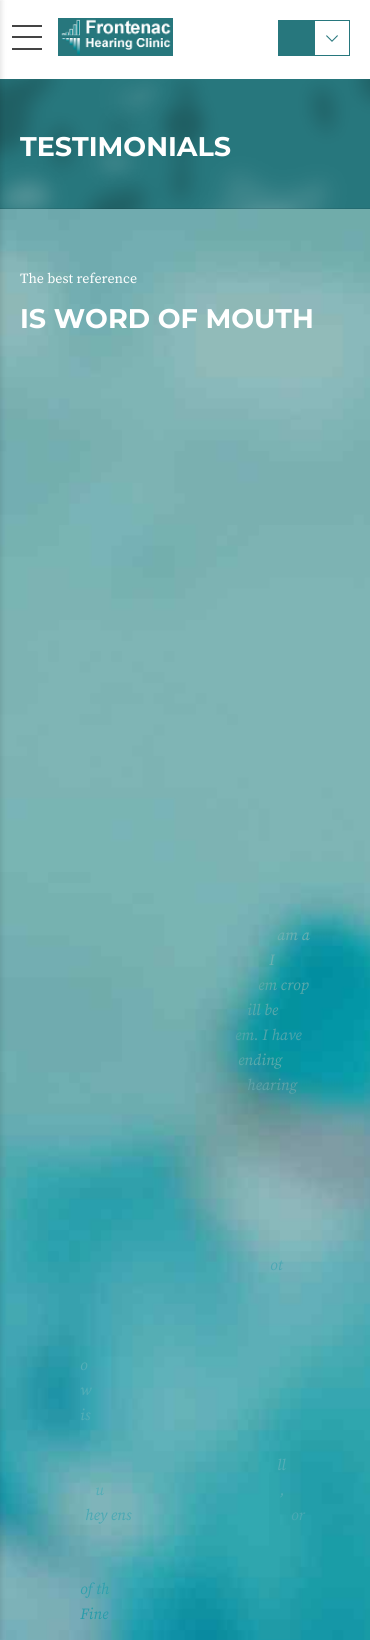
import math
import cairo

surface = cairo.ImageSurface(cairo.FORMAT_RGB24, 370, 1640)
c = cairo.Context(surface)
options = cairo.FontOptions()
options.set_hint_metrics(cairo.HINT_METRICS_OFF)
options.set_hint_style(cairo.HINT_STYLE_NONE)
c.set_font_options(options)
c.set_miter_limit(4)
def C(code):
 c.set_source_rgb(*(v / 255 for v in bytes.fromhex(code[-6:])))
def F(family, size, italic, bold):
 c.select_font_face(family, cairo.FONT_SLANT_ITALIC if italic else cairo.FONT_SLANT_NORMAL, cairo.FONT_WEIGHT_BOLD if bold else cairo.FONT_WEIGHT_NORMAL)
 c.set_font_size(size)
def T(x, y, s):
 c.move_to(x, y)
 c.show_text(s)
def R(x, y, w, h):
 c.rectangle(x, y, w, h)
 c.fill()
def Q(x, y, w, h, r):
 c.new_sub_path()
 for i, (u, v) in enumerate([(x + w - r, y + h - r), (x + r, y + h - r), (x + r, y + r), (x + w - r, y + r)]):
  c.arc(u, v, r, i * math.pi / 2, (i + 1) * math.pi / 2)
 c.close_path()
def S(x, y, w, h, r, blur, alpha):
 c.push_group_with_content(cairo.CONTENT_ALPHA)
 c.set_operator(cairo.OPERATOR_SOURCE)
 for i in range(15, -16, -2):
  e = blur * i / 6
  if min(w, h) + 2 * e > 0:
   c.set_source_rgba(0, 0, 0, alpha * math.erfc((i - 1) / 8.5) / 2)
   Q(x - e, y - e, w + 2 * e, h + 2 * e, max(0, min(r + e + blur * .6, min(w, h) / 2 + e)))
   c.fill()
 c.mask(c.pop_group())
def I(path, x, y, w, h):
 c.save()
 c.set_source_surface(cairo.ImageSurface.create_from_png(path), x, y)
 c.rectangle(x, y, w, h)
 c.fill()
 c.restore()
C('ffffff')
c.paint()
C('27777d')
R(0,79,370,130)
I('3.png',0,79,370,130)
c.set_source_rgba(0,0,0,0.1)
R(0,208,370,1)
I('4.png',0,209,370,1431)
C('000000')
S(-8,0,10,1640,0,2.5,.1)
C('444444')
R(12,25,30,2)
R(12,36,30,2)
R(12,48,30,2)
I('1.png',58,18,115,38)
C('27777d')
R(278,20,36,36)
c.rectangle(314.5,20.5,35,35)
c.set_line_width(1)
c.stroke()
I('2.png',326,35,12,7)
F('Montserrat',27,0,1)
C('ffffff')
T(20,156,'TESTIMONIALS')
F('Source Serif Pro',14,0,0)
T(20,283,'The best reference')
F('Montserrat',27,0,1)
T(20,328,'IS WORD OF MOUTH')
F('Source Serif Pro',15.5,1,0)
C('6db0b1')
T(277,940,'am a')
T(269,965,'I')
C('5ba9ab')
T(258,990,'em crop')
T(247,1015,'ill be')
C('52a5ab')
T(235,1040,'em. I have')
C('5ba9ab')
T(238,1065,'ending')
C('5ea2a8')
T(247,1090,'hearing')
C('4aa8b3')
T(270,1270,'ot')
C('54aeb7')
T(80,1370,'o')
T(80,1395,'w')
T(80,1420,'is')
T(277,1470,'ll')
T(95,1495,'u')
T(280,1495,',')
C('4aa8b3')
T(85,1520,'hey ens')
T(291,1520,'or')
C('2fa0ad')
T(80,1594,'of th')
C('289caa')
T(80,1619,'Fine')
surface.write_to_png('o.png')
